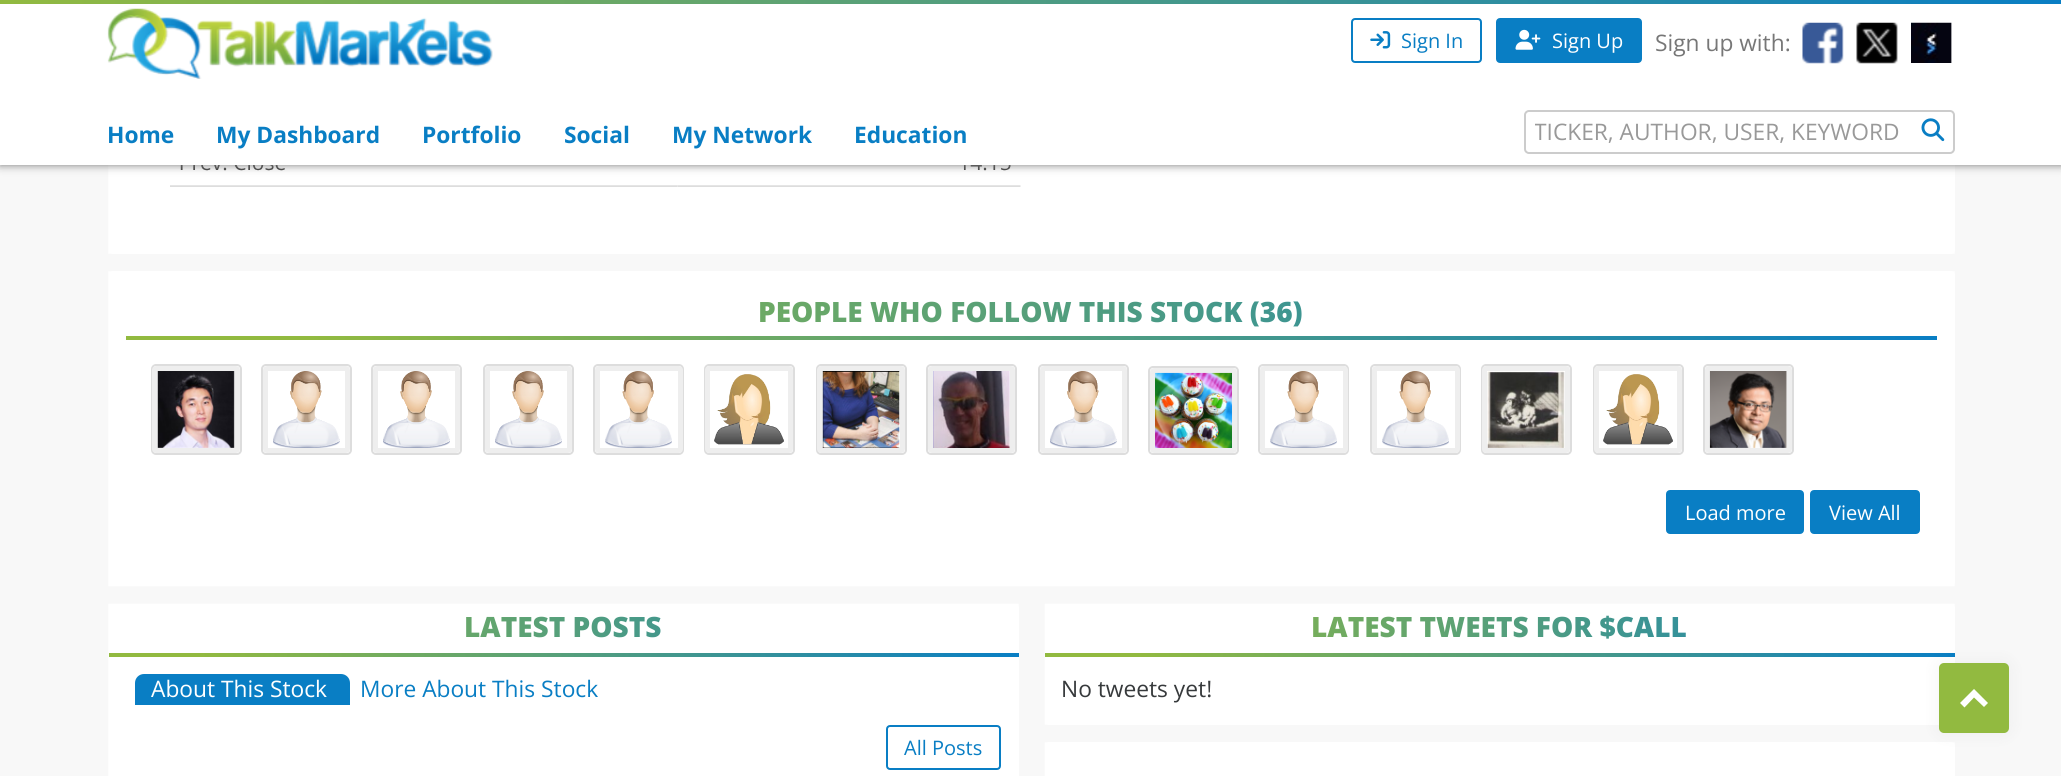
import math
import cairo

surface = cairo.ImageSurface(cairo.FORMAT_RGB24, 2061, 776)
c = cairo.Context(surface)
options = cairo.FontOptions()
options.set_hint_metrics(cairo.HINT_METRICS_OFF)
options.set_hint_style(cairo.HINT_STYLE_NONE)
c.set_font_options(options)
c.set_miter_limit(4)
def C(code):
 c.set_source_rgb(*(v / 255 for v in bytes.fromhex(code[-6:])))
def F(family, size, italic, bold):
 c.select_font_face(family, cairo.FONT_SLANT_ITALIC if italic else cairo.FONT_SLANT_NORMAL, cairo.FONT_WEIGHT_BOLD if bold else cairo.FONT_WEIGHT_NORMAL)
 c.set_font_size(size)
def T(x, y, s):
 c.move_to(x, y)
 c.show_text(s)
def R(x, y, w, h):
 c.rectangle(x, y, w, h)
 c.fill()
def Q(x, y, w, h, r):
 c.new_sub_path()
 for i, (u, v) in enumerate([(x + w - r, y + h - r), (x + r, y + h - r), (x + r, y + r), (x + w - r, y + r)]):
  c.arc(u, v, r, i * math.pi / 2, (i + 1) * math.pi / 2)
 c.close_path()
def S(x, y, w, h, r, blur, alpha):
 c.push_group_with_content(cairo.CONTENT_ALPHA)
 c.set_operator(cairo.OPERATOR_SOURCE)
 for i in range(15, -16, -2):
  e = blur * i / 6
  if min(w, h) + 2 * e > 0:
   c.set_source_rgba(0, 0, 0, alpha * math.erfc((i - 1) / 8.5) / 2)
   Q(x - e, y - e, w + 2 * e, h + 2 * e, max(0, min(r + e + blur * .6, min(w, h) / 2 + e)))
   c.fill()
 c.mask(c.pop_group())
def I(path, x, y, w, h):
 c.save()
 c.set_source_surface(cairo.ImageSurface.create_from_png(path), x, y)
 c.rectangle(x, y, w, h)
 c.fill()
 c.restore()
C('f8f8f8')
c.paint()
C('ffffff')
Q(109,-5,1846,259,5)
c.fill()
c.new_path()
c.move_to(117,-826)
c.line_to(1946,-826)
c.line_to(1946,245)
c.line_to(117,245)
c.close_path()
c.set_line_width(17.5)
c.stroke()
I('8.png',170,165,1610,22)
C('777777')
S(0,0,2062,165,0,4.5,1)
gradient = cairo.LinearGradient(0,1.8,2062,1.7)
gradient.add_color_stop_rgba(0,0.573,0.729,0.251,1)
gradient.add_color_stop_rgba(1,0.035,0.494,0.769,1)
c.set_source(gradient)
R(0,0,2061,4)
C('ffffff')
R(0,4,2061,161)
I('1.png',107,8,386,71)
Q(1352,19,129,43,3)
C('097ec4')
c.set_line_width(2)
c.stroke()
I('2.png',1370,31,21,18)
F('Open Sans',20,0,0)
T(1401,48,'Sign In')
Q(1497,19,144,43,3)
c.fill_preserve()
c.stroke()
I('3.png',1515,29,26,21)
C('ffffff')
T(1552,48,'Sign Up')
F('Open Sans',22.75,0,0)
C('777777')
T(1655,51,'Sign up with:')
I('4.png',1802,22,42,42)
I('5.png',1856,22,42,42)
I('6.png',1911,22,41,41)
F('Open Sans',22.75,0,1)
C('097ec4')
T(107,143,'Home')
T(216,143,'My Dashboard')
T(422,143,'Portfolio')
T(564,143,'Social')
T(672,143,'My Network')
T(854,143,'Education')
Q(1525,111,429,42,4)
C('cccccc')
c.stroke()
c.save()
c.rectangle(1535,116,374,31)
c.clip()
F('Open Sans',22.75,0,0)
C('999999')
T(1534,140,'TICKER, AUTHOR, USER, KEYWORD')
c.restore()
I('7.png',1921,118,24,24)
C('ffffff')
Q(109,271,1846,315,5)
c.fill()
c.new_path()
c.move_to(117,280)
c.line_to(1946,280)
c.line_to(1946,577.5)
c.line_to(117,577.5)
c.close_path()
c.set_line_width(17.5)
c.stroke()
F('Open Sans ExtraBold',28,0,0)
gradient = cairo.LinearGradient(143,312,1919,312)
gradient.add_color_stop_rgba(.1,0.573,0.729,0.251,1)
gradient.add_color_stop_rgba(1,0.035,0.494,0.769,1)
c.set_source(gradient)
T(758,322,'PEOPLE WHO FOLLOW THIS STOCK (36)')
gradient = cairo.LinearGradient(126,338,1937,338)
gradient.add_color_stop_rgba(.1,0.573,0.729,0.251,1)
gradient.add_color_stop_rgba(1,0.035,0.494,0.769,1)
c.set_source(gradient)
R(126,336,1811,4)
Q(152,365,89,89,4)
C('dddddd')
c.set_line_width(2)
c.stroke()
Q(262,365,89,89,4)
c.stroke()
Q(372,365,89,89,4)
c.stroke()
Q(484,365,89,89,4)
c.stroke()
Q(594,365,89,89,4)
c.stroke()
Q(705,365,89,89,4)
c.stroke()
Q(817,365,89,89,4)
c.stroke()
Q(927,365,89,89,4)
c.stroke()
Q(1039,365,89,89,4)
c.stroke()
Q(1259,365,89,89,4)
c.stroke()
Q(1371,365,89,89,4)
c.stroke()
Q(1482,365,89,89,4)
c.stroke()
Q(1594,365,89,89,4)
c.stroke()
Q(1704,365,89,89,4)
c.stroke()
Q(154.5,368.5,83,82,1.5)
C('eeeeee')
c.set_line_width(5)
c.stroke()
Q(265.5,368.5,82,82,1.5)
c.stroke()
Q(375.5,368.5,82,82,1.5)
c.stroke()
Q(487.5,368.5,82,82,1.5)
c.stroke()
Q(597.5,368.5,83,82,1.5)
c.stroke()
Q(707.5,368.5,83,82,1.5)
c.stroke()
Q(819.5,368.5,83,82,1.5)
c.stroke()
Q(930.5,368.5,82,82,1.5)
c.stroke()
Q(1042.5,368.5,82,82,1.5)
c.stroke()
Q(1149,367,89,87,4)
C('dddddd')
c.set_line_width(2)
c.stroke()
Q(1262.5,368.5,83,82,1.5)
C('eeeeee')
c.set_line_width(5)
c.stroke()
Q(1374.5,368.5,83,82,1.5)
c.stroke()
Q(1484.5,368.5,83,82,1.5)
c.stroke()
Q(1596.5,368.5,83,82,1.5)
c.stroke()
Q(1707.5,368.5,82,82,1.5)
c.stroke()
I('9.png',157,371,78,77)
I('10.png',273,371,67,77)
I('11.png',383,371,67,77)
I('11.png',495,371,67,77)
I('12.png',605,371,67,77)
I('13.png',822,371,78,77)
I('14.png',933,371,77,77)
I('10.png',1050,371,67,77)
Q(1152.5,370.5,82,80,1.5)
c.stroke()
I('12.png',1270,371,67,77)
I('15.png',1382,371,67,77)
I('16.png',1487,371,78,77)
I('17.png',1709,371,78,77)
I('18.png',714,374,70,71)
I('19.png',1155,372,77,76)
I('18.png',1603,374,70,71)
C('097ec4')
Q(1667,491,136,42,3)
c.fill_preserve()
c.set_line_width(2)
c.stroke()
F('Open Sans',20,0,0)
C('ffffff')
T(1685,520,'Load more')
C('097ec4')
Q(1811,491,108,42,3)
c.fill_preserve()
c.stroke()
C('ffffff')
T(1829,520,'View All')
Q(109,604,910,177,5)
c.fill()
c.new_path()
c.move_to(117,612.5)
c.line_to(1010,612.5)
c.line_to(1010,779)
c.line_to(117,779)
c.close_path()
c.set_line_width(17.5)
c.stroke()
F('Open Sans ExtraBold',28,0,0)
gradient = cairo.LinearGradient(125,628,1000,628)
gradient.add_color_stop_rgba(.1,0.573,0.729,0.251,1)
gradient.add_color_stop_rgba(1,0.035,0.494,0.769,1)
c.set_source(gradient)
T(464,637,'LATEST POSTS')
gradient = cairo.LinearGradient(109,655,1019,655)
gradient.add_color_stop_rgba(.1,0.573,0.729,0.251,1)
gradient.add_color_stop_rgba(1,0.035,0.494,0.769,1)
c.set_source(gradient)
R(109,653,910,4)
C('097ec4')
c.new_path()
c.move_to(144,674)
c.line_to(341,674)
c.curve_to(346,674,350,678,350,683)
c.line_to(350,705)
c.line_to(135,705)
c.line_to(135,683)
c.curve_to(135,678,139,674,144,674)
c.close_path()
c.fill()
F('Open Sans',22.75,0,0)
C('ffffff')
T(151,697,'About This Stock')
C('097ec4')
T(360,697,'More About This Stock')
Q(887,726,113,43,3)
c.set_line_width(2)
c.stroke()
F('Open Sans',20,0,0)
T(904,755,'All Posts')
C('ffffff')
Q(1045,604,910,121,5)
c.fill()
c.new_path()
c.move_to(1053.5,612.5)
c.line_to(1946,612.5)
c.line_to(1946,716)
c.line_to(1053.5,716)
c.close_path()
c.set_line_width(17.5)
c.stroke()
F('Open Sans ExtraBold',28,0,0)
gradient = cairo.LinearGradient(1061,628,1936,628)
gradient.add_color_stop_rgba(.1,0.573,0.729,0.251,1)
gradient.add_color_stop_rgba(1,0.035,0.494,0.769,1)
c.set_source(gradient)
T(1311,637,'LATEST TWEETS FOR $CALL')
gradient = cairo.LinearGradient(1045,655,1955,655)
gradient.add_color_stop_rgba(.1,0.573,0.729,0.251,1)
gradient.add_color_stop_rgba(1,0.035,0.494,0.769,1)
c.set_source(gradient)
R(1045,653,910,4)
F('Open Sans',22.75,0,0)
C('373a3c')
T(1061,697,'No tweets yet!')
C('ffffff')
Q(1045,742,910,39,5)
c.fill()
c.new_path()
c.move_to(1053.5,751)
c.line_to(1946,751)
c.line_to(1946,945)
c.line_to(1053.5,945)
c.close_path()
c.stroke()
C('000000')
S(1939,663,70,70,5,9,.05)
C('92ba40')
Q(1939,663,70,70,5)
c.fill()
C('ffffff')
c.new_path()
c.move_to(1974,689)
c.line_to(1988,703)
c.line_to(1984,707)
c.line_to(1974,697.5)
c.line_to(1964.5,707.5)
c.line_to(1960,703)
c.close_path()
c.fill()
surface.write_to_png('o.png')
